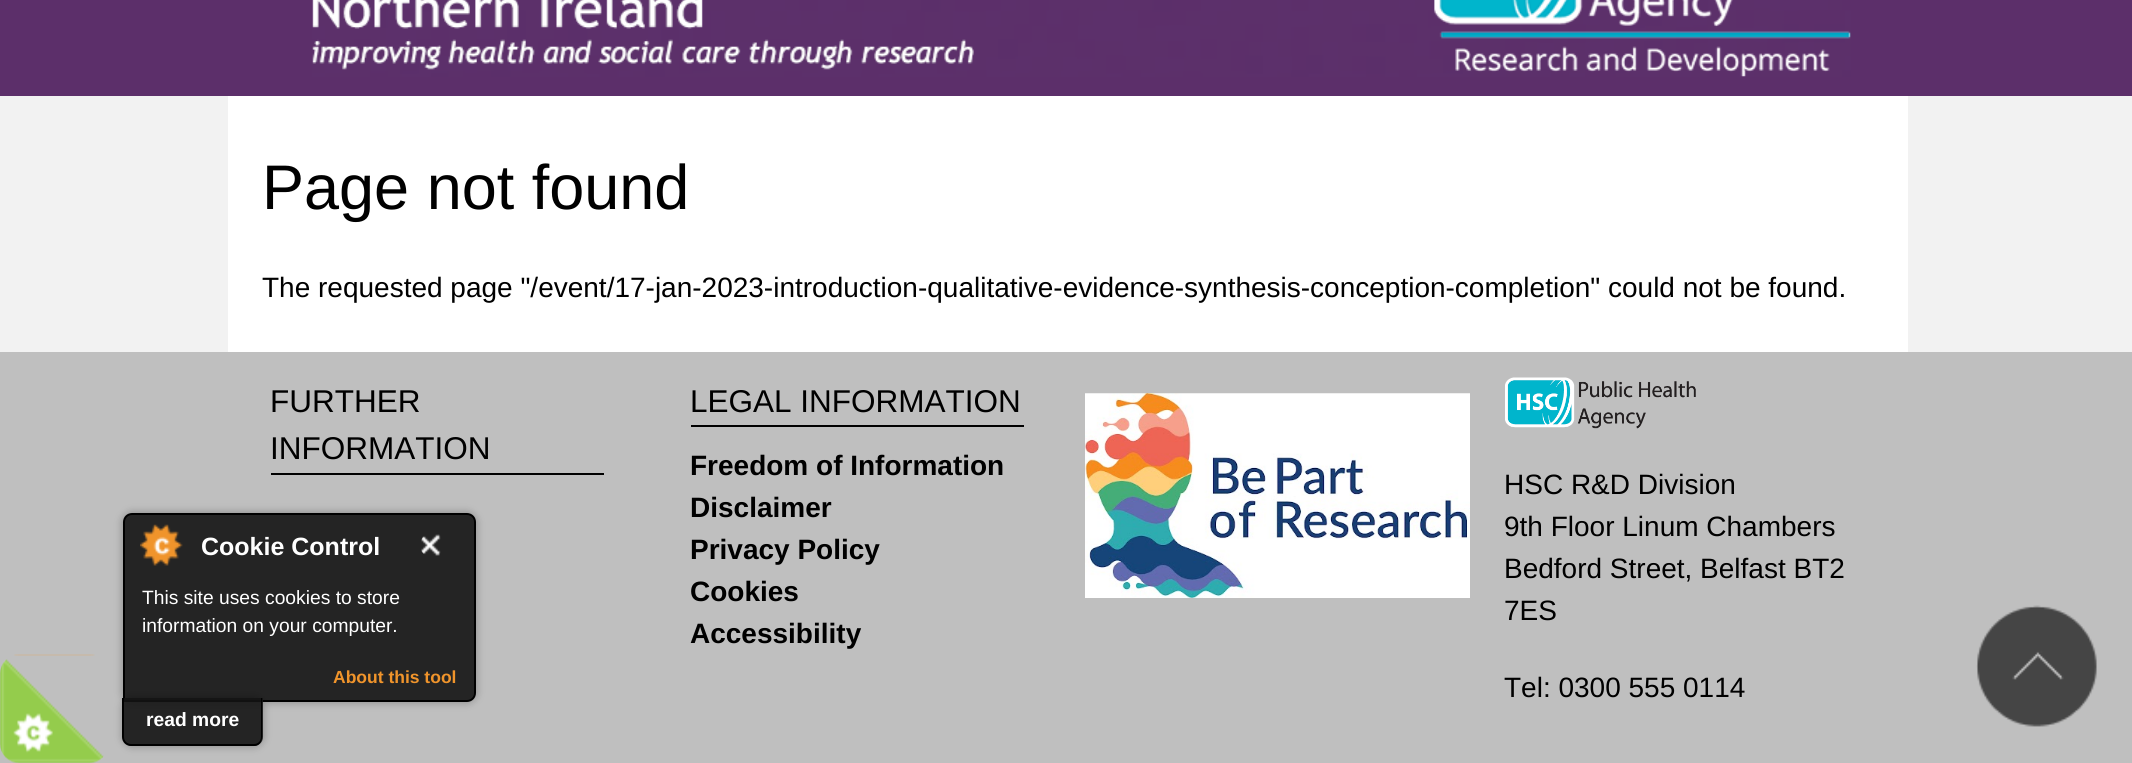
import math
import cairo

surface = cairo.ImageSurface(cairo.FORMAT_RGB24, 2132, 763)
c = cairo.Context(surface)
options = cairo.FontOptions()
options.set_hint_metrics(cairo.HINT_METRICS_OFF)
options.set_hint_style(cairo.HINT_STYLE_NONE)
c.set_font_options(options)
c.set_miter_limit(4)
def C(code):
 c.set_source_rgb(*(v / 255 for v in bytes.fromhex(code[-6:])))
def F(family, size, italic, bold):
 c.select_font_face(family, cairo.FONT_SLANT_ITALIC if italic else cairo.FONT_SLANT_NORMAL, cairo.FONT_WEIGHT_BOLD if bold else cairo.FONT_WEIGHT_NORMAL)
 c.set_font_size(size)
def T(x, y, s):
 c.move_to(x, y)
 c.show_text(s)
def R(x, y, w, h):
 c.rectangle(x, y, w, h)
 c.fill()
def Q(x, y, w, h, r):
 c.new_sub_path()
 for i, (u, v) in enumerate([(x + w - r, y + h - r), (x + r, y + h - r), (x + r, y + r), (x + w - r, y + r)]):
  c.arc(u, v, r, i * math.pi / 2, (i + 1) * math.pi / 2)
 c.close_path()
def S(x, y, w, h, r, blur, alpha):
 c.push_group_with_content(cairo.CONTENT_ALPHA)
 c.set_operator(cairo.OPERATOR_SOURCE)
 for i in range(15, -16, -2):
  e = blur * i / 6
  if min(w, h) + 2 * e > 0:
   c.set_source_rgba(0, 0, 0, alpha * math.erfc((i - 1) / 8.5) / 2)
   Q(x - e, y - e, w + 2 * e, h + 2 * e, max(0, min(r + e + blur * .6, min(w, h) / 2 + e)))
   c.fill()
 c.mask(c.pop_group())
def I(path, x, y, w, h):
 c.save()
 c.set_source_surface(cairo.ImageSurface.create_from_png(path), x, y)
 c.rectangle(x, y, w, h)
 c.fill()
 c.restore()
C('f2f2f2')
c.paint()
C('5c2f6a')
R(0,0,2132,96)
I('1.png',312,0,1539,77)
C('ffffff')
R(228,96,1680,256)
F('Liberation Sans',63,0,0)
C('000000')
T(262,209,'Page not found')
F('Liberation Sans',28,0,0)
T(262,297,'The requested page "/event/17-jan-2023-introduction-qualitative-evidence-synthesis-conception-completion" could not be found.')
C('bfbfbf')
R(0,352,2132,411)
C('000000')
R(271,473,333,2)
F('Liberation Sans',31.5,0,0)
T(270,412,'FURTHER')
T(270,459,'INFORMATION')
R(691,425,333,2)
T(690,412,'LEGAL INFORMATION')
F('Liberation Sans',28,0,1)
T(690,475,'Freedom of Information')
T(690,517,'Disclaimer')
T(690,559,'Privacy Policy')
T(690,601,'Cookies')
T(690,643,'Accessibility')
I('2.png',1085,393,385,205)
I('3.png',1505,377,191,52)
F('Liberation Sans',28,0,0)
T(1504,494,'HSC R&D Division')
T(1504,536,'9th Floor Linum Chambers')
T(1504,578,'Bedford Street, Belfast BT2')
T(1504,620,'7ES')
T(1504,697,'Tel: 0300 555 0114')
I('4.png',0,654,104,109)
c.save()
c.set_fill_rule(cairo.FILL_RULE_EVEN_ODD)
c.new_path()
c.move_to(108,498)
c.line_to(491,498)
c.line_to(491,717)
c.line_to(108,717)
c.close_path()
c.move_to(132,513)
c.line_to(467,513)
c.curve_to(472,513,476,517,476,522)
c.line_to(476,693)
c.curve_to(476,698,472,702,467,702)
c.line_to(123,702)
c.line_to(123,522)
c.curve_to(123,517,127,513,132,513)
c.close_path()
c.clip()
C('000000')
S(123,513,353,189,9,4.5,.3)
c.restore()
c.set_source_rgba(0.078,0.078,0.078,0.9)
c.new_path()
c.move_to(132,514)
c.line_to(467,514)
c.curve_to(471.5,514,475,517.5,475,522)
c.line_to(475,693)
c.curve_to(475,697.5,471.5,701,467,701)
c.line_to(124,701)
c.line_to(124,522)
c.curve_to(124,517.5,127.5,514,132,514)
c.close_path()
c.fill_preserve()
C('000000')
c.stroke()
I('5.png',140,524,43,42)
F('Liberation Sans',25,0,1)
C('ffffff')
T(201,555,'Cookie Control')
I('6.png',421,534,20,22)
F('Liberation Sans',19.25,0,0)
T(142,604,'This site uses cookies to store')
T(142,632,'information on your computer.')
F('Liberation Sans',17.5,0,1)
C('f0942b')
T(333,683,'About this tool')
c.save()
c.set_fill_rule(cairo.FILL_RULE_EVEN_ODD)
c.new_path()
c.move_to(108,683)
c.line_to(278,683)
c.line_to(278,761)
c.line_to(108,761)
c.close_path()
c.move_to(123,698)
c.line_to(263,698)
c.line_to(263,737)
c.curve_to(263,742,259,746,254,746)
c.line_to(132,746)
c.curve_to(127,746,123,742,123,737)
c.close_path()
c.clip()
C('000000')
S(123,698,140,48,9,4.5,.3)
c.restore()
c.set_source_rgba(0.078,0.078,0.078,0.9)
c.new_path()
c.move_to(123,698)
c.line_to(263,698)
c.line_to(263,737)
c.curve_to(263,742,259,746,254,746)
c.line_to(132,746)
c.curve_to(127,746,123,742,123,737)
c.close_path()
c.fill()
C('000000')
c.set_fill_rule(cairo.FILL_RULE_EVEN_ODD)
c.new_path()
c.move_to(122,698)
c.line_to(262,698)
c.line_to(262,737)
c.curve_to(262,742,259,746,254,746)
c.line_to(131,746)
c.curve_to(126,746,122,742,122,737)
c.close_path()
c.move_to(124,698)
c.line_to(261,698)
c.line_to(261,737)
c.curve_to(261,741,258,744,254,744)
c.line_to(131,744)
c.curve_to(127,744,124,741,124,737)
c.close_path()
c.fill()
F('Liberation Sans',19.25,0,1)
C('ffffff')
T(146,726,'read more')
I('7.png',1976,605,121,122)
surface.write_to_png('o.png')
